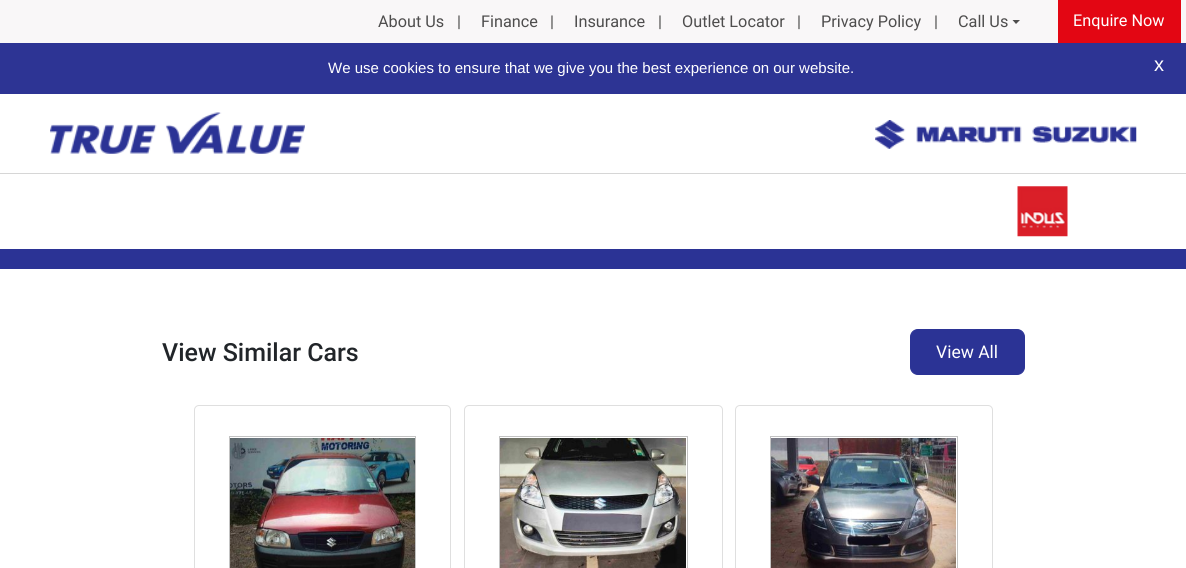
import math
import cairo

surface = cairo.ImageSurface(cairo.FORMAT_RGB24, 1186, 568)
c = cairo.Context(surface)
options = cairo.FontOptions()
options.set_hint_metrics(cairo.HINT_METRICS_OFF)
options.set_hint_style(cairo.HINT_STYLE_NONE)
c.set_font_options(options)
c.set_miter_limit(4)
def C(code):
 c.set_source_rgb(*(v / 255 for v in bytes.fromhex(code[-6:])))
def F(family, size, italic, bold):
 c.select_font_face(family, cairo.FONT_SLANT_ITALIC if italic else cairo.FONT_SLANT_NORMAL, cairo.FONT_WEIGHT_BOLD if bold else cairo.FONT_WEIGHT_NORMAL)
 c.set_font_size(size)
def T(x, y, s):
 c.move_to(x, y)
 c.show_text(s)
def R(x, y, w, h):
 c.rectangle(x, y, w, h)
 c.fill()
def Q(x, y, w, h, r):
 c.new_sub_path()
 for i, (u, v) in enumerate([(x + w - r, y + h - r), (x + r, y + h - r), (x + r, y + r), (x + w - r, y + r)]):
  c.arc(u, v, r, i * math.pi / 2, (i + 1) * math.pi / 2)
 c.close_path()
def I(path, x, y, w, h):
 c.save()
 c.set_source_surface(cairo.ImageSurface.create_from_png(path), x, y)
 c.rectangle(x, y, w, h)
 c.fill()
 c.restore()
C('ffffff')
c.paint()
C('f9f7f8')
R(0,0,1186,43)
F('Roboto',16.25,0,0)
C('4e4d4d')
T(378,27,'About Us')
T(457,27,'|')
T(481,27,'Finance')
T(550,27,'|')
T(574,27,'Insurance')
T(658,27,'|')
T(682,27,'Outlet Locator')
T(797,27,'|')
T(821,27,'Privacy Policy')
T(934,27,'|')
T(958,27,'Call Us')
c.new_path()
c.move_to(1012.5,20)
c.line_to(1020,20)
c.line_to(1016,24)
c.close_path()
c.fill()
C('e30613')
R(1058,0,123,43)
C('ffffff')
T(1073,26,'Enquire Now')
C('2d3494')
R(0,43,1186,51)
F('Liberation Sans',15,0,0)
C('ffffff')
T(328,73,'We use cookies to ensure that we give you the best experience on our website.')
F('Liberation Sans',20,0,0)
T(1154,71,'x')
C('d6d6d6')
R(0,173,1186,1)
I('1.png',50,112,255,42)
I('2.png',875,120,262,29)
I('3.png',1017,186,51,51)
C('2b3395')
R(0,249,1186,20)
F('Roboto Medium',25,0,0)
C('212529')
T(162,361,'View Similar Cars')
C('2b3395')
Q(910.5,329.5,114,45,7.5)
c.fill_preserve()
c.set_line_width(1)
c.stroke()
F('Roboto',17.5,0,0)
C('ffffff')
T(936,358,'View All')
Q(194.5,405.5,256,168,4.5)
C('dfdfdf')
c.stroke()
c.rectangle(229.5,436.5,186,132)
C('c3c3c3')
c.stroke()
I('4.png',230,438,185,130)
Q(464.5,405.5,258,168,4.5)
C('dfdfdf')
c.stroke()
c.rectangle(499.5,436.5,188,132)
C('c3c3c3')
c.stroke()
I('5.png',500,438,186,130)
Q(735.5,405.5,257,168,4.5)
C('dfdfdf')
c.stroke()
c.rectangle(770.5,436.5,187,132)
C('c3c3c3')
c.stroke()
I('6.png',771,438,185,130)
surface.write_to_png('o.png')
